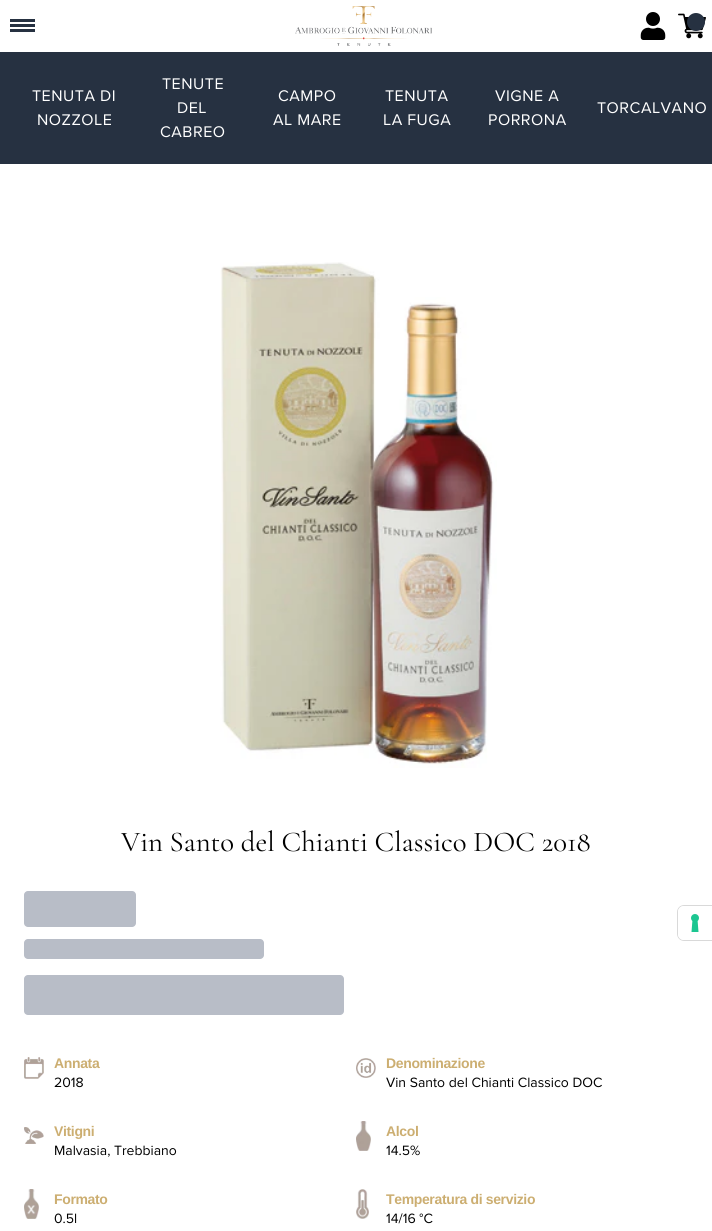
import math
import cairo

surface = cairo.ImageSurface(cairo.FORMAT_RGB24, 712, 1231)
c = cairo.Context(surface)
options = cairo.FontOptions()
options.set_hint_metrics(cairo.HINT_METRICS_OFF)
options.set_hint_style(cairo.HINT_STYLE_NONE)
c.set_font_options(options)
c.set_miter_limit(4)
def C(code):
 c.set_source_rgb(*(v / 255 for v in bytes.fromhex(code[-6:])))
def F(family, size, italic, bold):
 c.select_font_face(family, cairo.FONT_SLANT_ITALIC if italic else cairo.FONT_SLANT_NORMAL, cairo.FONT_WEIGHT_BOLD if bold else cairo.FONT_WEIGHT_NORMAL)
 c.set_font_size(size)
def T(x, y, s):
 c.move_to(x, y)
 c.show_text(s)
def L(x, y, s, letter, word):
 c.move_to(x, y)
 for ch in s:
  c.show_text(ch)
  c.rel_move_to(letter + word * (ch == ' '), 0)
def R(x, y, w, h):
 c.rectangle(x, y, w, h)
 c.fill()
def Q(x, y, w, h, r):
 c.new_sub_path()
 for i, (u, v) in enumerate([(x + w - r, y + h - r), (x + r, y + h - r), (x + r, y + r), (x + w - r, y + r)]):
  c.arc(u, v, r, i * math.pi / 2, (i + 1) * math.pi / 2)
 c.close_path()
def I(path, x, y, w, h):
 c.save()
 c.set_source_surface(cairo.ImageSurface.create_from_png(path), x, y)
 c.rectangle(x, y, w, h)
 c.fill()
 c.restore()
C('ffffff')
c.paint()
C('263141')
R(10,19,25,3)
R(10,24,25,3)
R(10,29,25,3)
I('1.png',295,6,137,40)
I('2.png',640,12,26,28)
I('3.png',678,13,28,26)
c.arc(696,22,9,0,2 * math.pi)
c.fill()
R(0,52,712,112)
F('Proxima Nova',16,0,0)
C('ffffff')
L(32,101,'TENUTA DI',.5,0)
L(37,125,'NOZZOLE',.5,0)
L(162,89,'TENUTE',.5,0)
L(177,113,'DEL',.5,0)
L(160,137,'CABREO',.5,0)
L(278,101,'CAMPO',.5,0)
L(273,125,'AL MARE',.5,0)
L(385,101,'TENUTA',.5,0)
L(383,125,'LA FUGA',.5,0)
L(495,101,'VIGNE A',.5,0)
L(488,125,'PORRONA',.5,0)
L(597,113,'TORCALVANO',.5,0)
I('4.png',220,262,277,506)
F('Cormorant Garamond',28.75,0,0)
C('000000')
T(121,851,'Vin Santo del Chianti Classico DOC 2018')
C('b8bdc7')
Q(24,891,112,36,4)
c.fill()
Q(24,939,240,20,4)
c.fill()
Q(24,975,320,40,4)
c.fill()
I('5.png',24,1057,20,22)
F('Liberation Sans',14,0,1)
C('ccae71')
L(54,1068,'Annata',-.35,0)
F('Proxima Nova',14,0,0)
C('000000')
T(54,1087,'2018')
I('6.png',356,1058,20,20)
F('Liberation Sans',14,0,1)
C('ccae71')
L(386,1068,'Denominazione',-.35,0)
F('Proxima Nova',14,0,0)
C('000000')
T(386,1087,'Vin Santo del Chianti Classico DOC')
I('7.png',24,1127,20,17)
F('Liberation Sans',14,0,1)
C('ccae71')
L(54,1136,'Vitigni',-.35,0)
F('Proxima Nova',14,0,0)
C('000000')
T(54,1155,'Malvasia, Trebbiano')
I('8.png',356,1121,15,30)
F('Liberation Sans',14,0,1)
C('ccae71')
L(386,1136,'Alcol',-.35,0)
F('Proxima Nova',14,0,0)
C('000000')
T(386,1155,'14.5%')
I('9.png',24,1189,15,30)
F('Liberation Sans',14,0,1)
C('ccae71')
L(54,1204,'Formato',-.35,0)
F('Proxima Nova',14,0,0)
C('000000')
T(54,1223,'0.5l')
I('10.png',356,1189,13,30)
F('Liberation Sans',14,0,1)
C('ccae71')
L(386,1204,'Temperatura di servizio',-.35,0)
F('Proxima Nova',14,0,0)
C('000000')
T(386,1223,'14/16 °C')
c.new_path()
c.move_to(684,905.5)
c.line_to(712.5,905.5)
c.line_to(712.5,940.5)
c.line_to(684,940.5)
c.curve_to(680.5,940.5,677.5,937.5,677.5,934)
c.line_to(677.5,912)
c.curve_to(677.5,908.5,680.5,905.5,684,905.5)
c.close_path()
C('d9d9d9')
c.set_line_width(1)
c.stroke()
C('ffffff')
c.new_path()
c.move_to(684,906)
c.line_to(712,906)
c.line_to(712,940)
c.line_to(684,940)
c.curve_to(680.5,940,678,937.5,678,934)
c.line_to(678,912)
c.curve_to(678,908.5,680.5,906,684,906)
c.close_path()
c.fill()
I('11.png',691,914,8,18)
surface.write_to_png('o.png')
